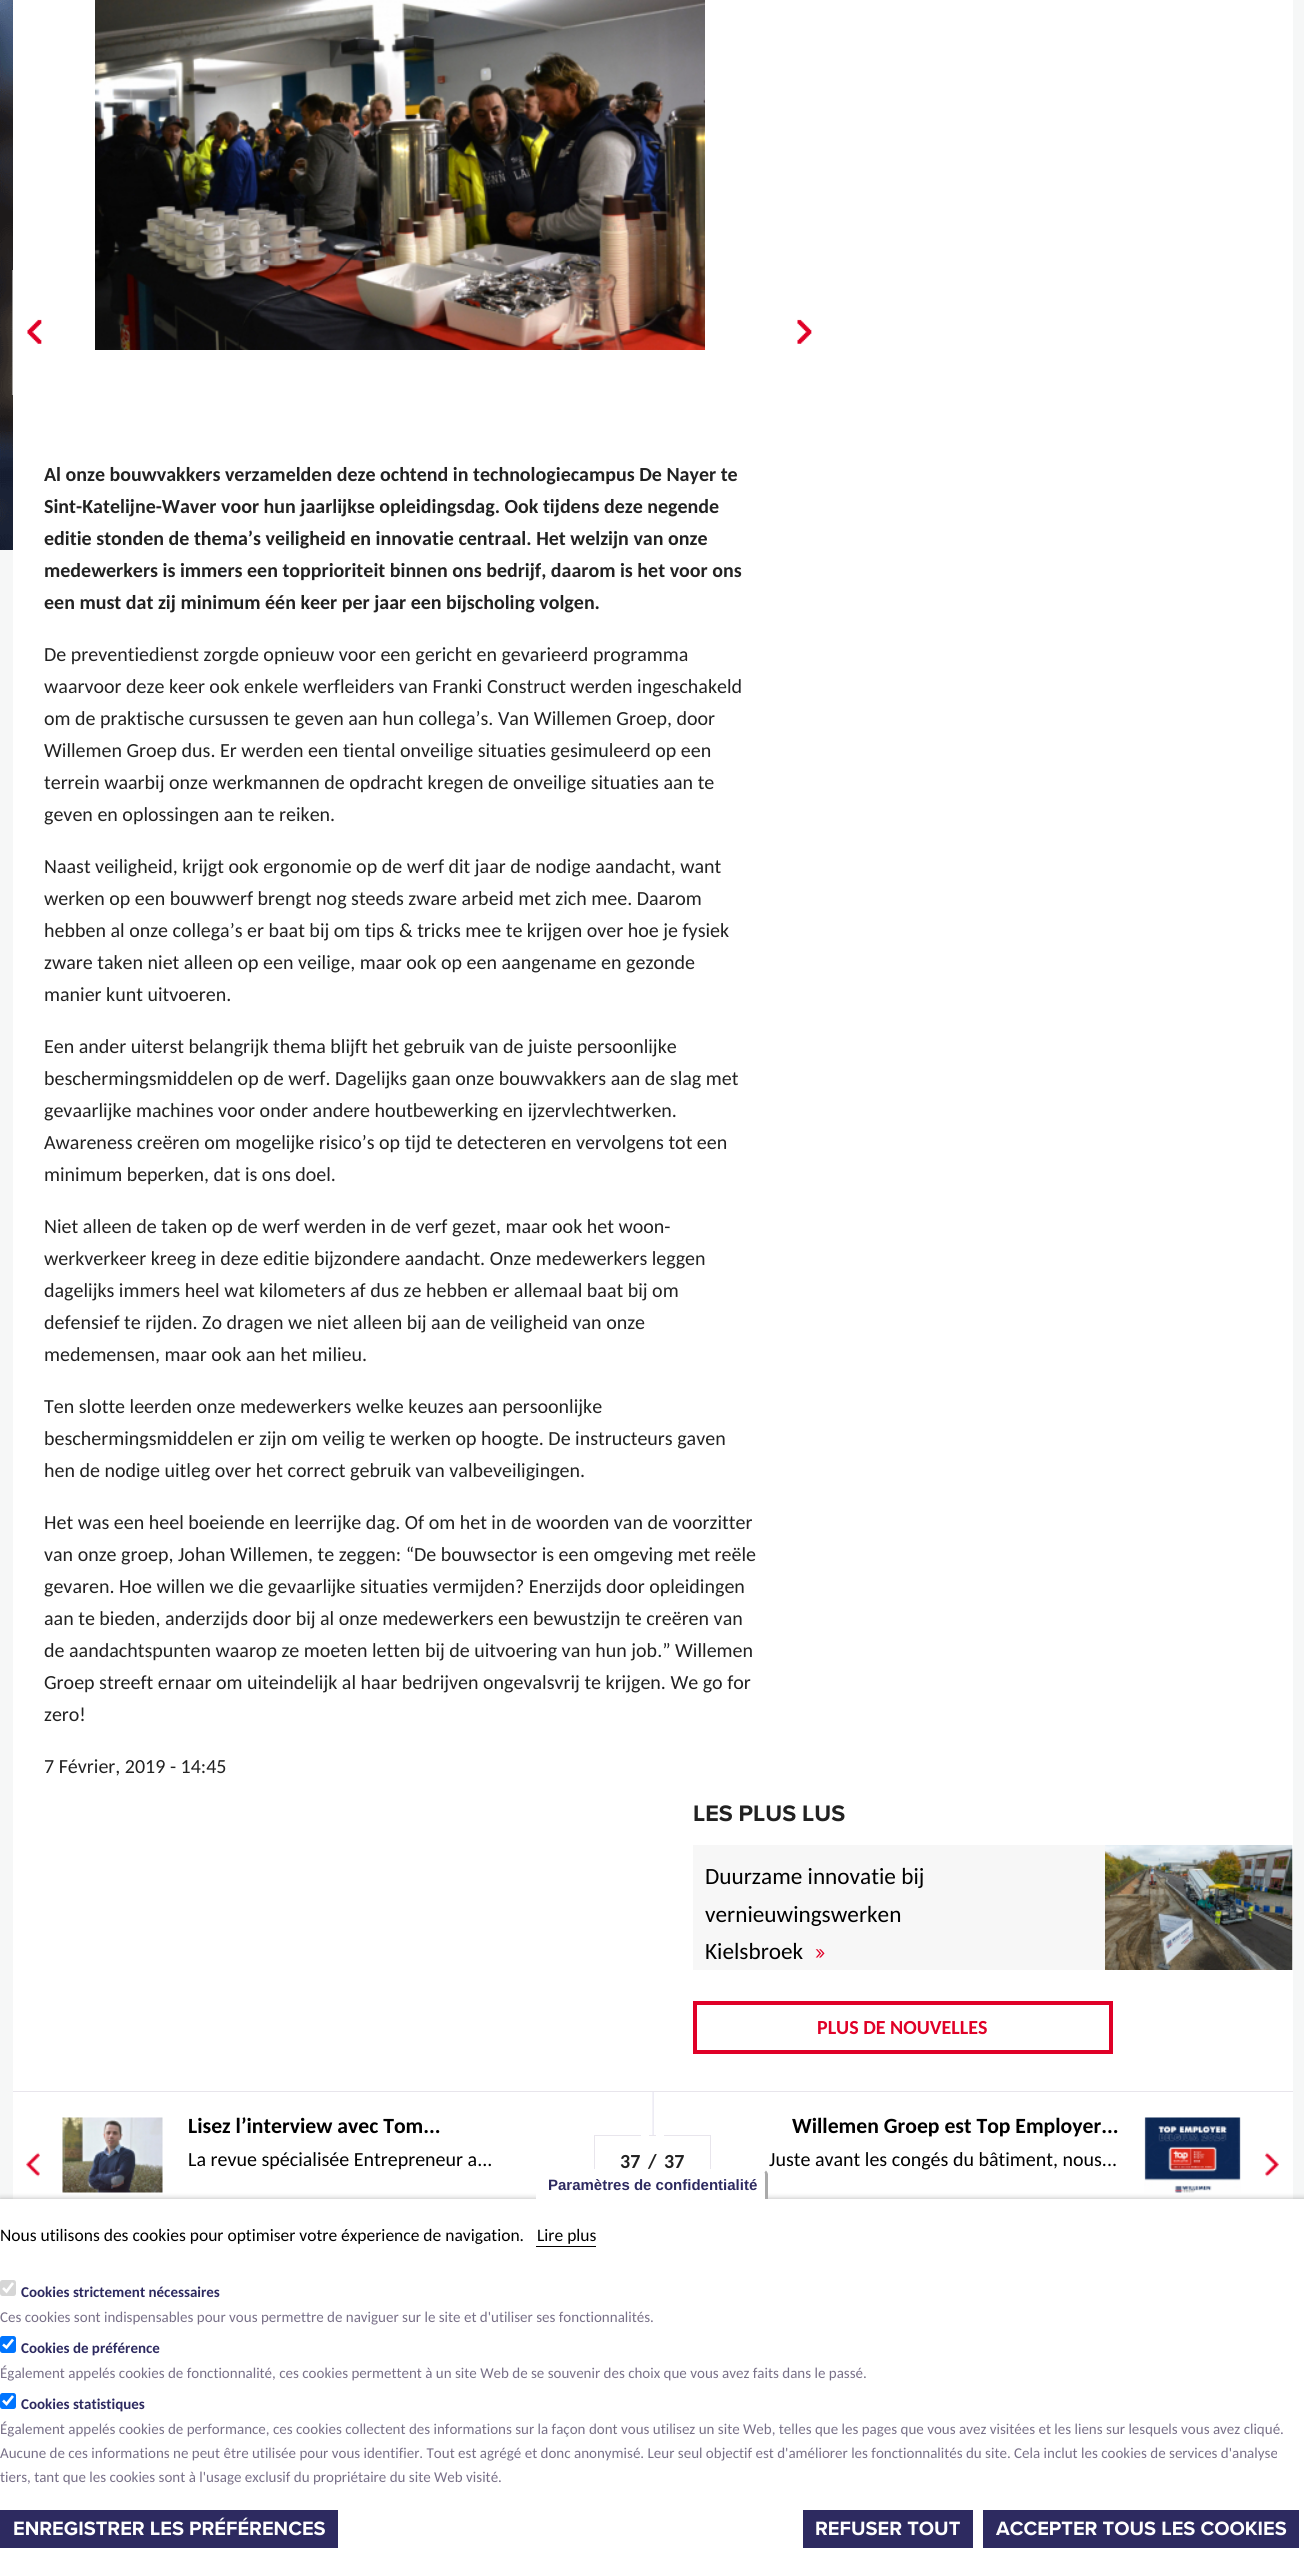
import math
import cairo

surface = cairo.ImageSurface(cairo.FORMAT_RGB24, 1304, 2567)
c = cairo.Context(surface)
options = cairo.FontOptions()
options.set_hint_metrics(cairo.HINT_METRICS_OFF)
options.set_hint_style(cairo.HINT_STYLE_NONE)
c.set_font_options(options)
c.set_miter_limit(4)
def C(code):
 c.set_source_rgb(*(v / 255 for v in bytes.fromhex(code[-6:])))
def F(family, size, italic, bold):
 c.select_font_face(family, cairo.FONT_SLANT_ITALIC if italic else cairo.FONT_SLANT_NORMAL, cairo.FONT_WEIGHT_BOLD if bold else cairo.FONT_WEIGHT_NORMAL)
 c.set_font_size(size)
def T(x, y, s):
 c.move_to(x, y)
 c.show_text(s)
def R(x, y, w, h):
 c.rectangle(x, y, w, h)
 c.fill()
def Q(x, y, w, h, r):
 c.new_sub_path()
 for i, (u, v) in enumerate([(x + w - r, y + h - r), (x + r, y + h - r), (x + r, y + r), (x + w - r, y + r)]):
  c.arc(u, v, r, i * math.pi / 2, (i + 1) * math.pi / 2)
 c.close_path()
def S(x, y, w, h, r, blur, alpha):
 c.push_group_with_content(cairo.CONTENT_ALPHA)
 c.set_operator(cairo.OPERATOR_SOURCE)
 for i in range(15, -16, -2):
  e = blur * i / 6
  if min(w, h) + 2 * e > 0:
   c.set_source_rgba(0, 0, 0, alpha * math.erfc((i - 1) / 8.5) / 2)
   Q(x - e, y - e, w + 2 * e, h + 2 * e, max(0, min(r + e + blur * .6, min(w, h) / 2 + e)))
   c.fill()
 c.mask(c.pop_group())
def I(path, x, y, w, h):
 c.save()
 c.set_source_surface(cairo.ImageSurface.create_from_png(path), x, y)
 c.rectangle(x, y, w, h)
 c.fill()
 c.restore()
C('f6f7f7')
c.paint()
I('1.png',0,0,13,550)
C('ffffff')
R(13,0,1280,2199)
I('2.png',12,270,30,125)
I('3.png',95,0,610,350)
I('4.png',797,319,15,25)
F('Carlito',20,0,1)
C('222222')
T(44,481,'Al onze bouwvakkers verzamelden deze ochtend in technologiecampus De Nayer te')
T(44,513,'Sint-Katelijne-Waver voor hun jaarlijkse opleidingsdag. Ook tijdens deze negende')
T(44,545,'editie stonden de thema’s veiligheid en innovatie centraal. Het welzijn van onze')
T(44,577,'medewerkers is immers een topprioriteit binnen ons bedrijf, daarom is het voor ons')
T(44,609,'een must dat zij minimum één keer per jaar een bijscholing volgen.')
F('Carlito',20,0,0)
T(44,661,'De preventiedienst zorgde opnieuw voor een gericht en gevarieerd programma')
T(44,693,'waarvoor deze keer ook enkele werfleiders van Franki Construct werden ingeschakeld')
T(44,725,'om de praktische cursussen te geven aan hun collega’s. Van Willemen Groep, door')
T(44,757,'Willemen Groep dus. Er werden een tiental onveilige situaties gesimuleerd op een')
T(44,789,'terrein waarbij onze werkmannen de opdracht kregen de onveilige situaties aan te')
T(44,821,'geven en oplossingen aan te reiken.')
T(44,873,'Naast veiligheid, krijgt ook ergonomie op de werf dit jaar de nodige aandacht, want')
T(44,905,'werken op een bouwwerf brengt nog steeds zware arbeid met zich mee. Daarom')
T(44,937,'hebben al onze collega’s er baat bij om tips & tricks mee te krijgen over hoe je fysiek')
T(44,969,'zware taken niet alleen op een veilige, maar ook op een aangename en gezonde')
T(44,1001,'manier kunt uitvoeren.')
T(44,1053,'Een ander uiterst belangrijk thema blijft het gebruik van de juiste persoonlijke')
T(44,1085,'beschermingsmiddelen op de werf. Dagelijks gaan onze bouwvakkers aan de slag met')
T(44,1117,'gevaarlijke machines voor onder andere houtbewerking en ijzervlechtwerken.')
T(44,1149,'Awareness creëren om mogelijke risico’s op tijd te detecteren en vervolgens tot een')
T(44,1181,'minimum beperken, dat is ons doel.')
T(44,1233,'Niet alleen de taken op de werf werden in de verf gezet, maar ook het woon-')
T(44,1265,'werkverkeer kreeg in deze editie bijzondere aandacht. Onze medewerkers leggen')
T(44,1297,'dagelijks immers heel wat kilometers af dus ze hebben er allemaal baat bij om')
T(44,1329,'defensief te rijden. Zo dragen we niet alleen bij aan de veiligheid van onze')
T(44,1361,'medemensen, maar ook aan het milieu.')
T(44,1413,'Ten slotte leerden onze medewerkers welke keuzes aan persoonlijke')
T(44,1445,'beschermingsmiddelen er zijn om veilig te werken op hoogte. De instructeurs gaven')
T(44,1477,'hen de nodige uitleg over het correct gebruik van valbeveiligingen.')
T(44,1529,'Het was een heel boeiende en leerrijke dag. Of om het in de woorden van de voorzitter')
T(44,1561,'van onze groep, Johan Willemen, te zeggen: “De bouwsector is een omgeving met reële')
T(44,1593,'gevaren. Hoe willen we die gevaarlijke situaties vermijden? Enerzijds door opleidingen')
T(44,1625,'aan te bieden, anderzijds door bij al onze medewerkers een bewustzijn te creëren van')
T(44,1657,'de aandachtspunten waarop ze moeten letten bij de uitvoering van hun job.” Willemen')
T(44,1689,'Groep streeft ernaar om uiteindelijk al haar bedrijven ongevalsvrij te krijgen. We go for')
T(44,1721,'zero!')
T(44,1773,'7 Février, 2019 - 14:45')
F('Proxima Nova',23.25,0,1)
T(693,1821,'LES PLUS LUS')
C('f7f7f7')
R(693,1845,412,125)
F('Carlito',23.25,0,0)
C('000000')
T(705,1884,'Duurzame innovatie bij')
T(705,1922,'vernieuwingswerken')
T(705,1959,'Kielsbroek')
F('Proxima Nova',23.25,0,0)
C('e00027')
T(815,1959,'»')
I('5.png',1105,1845,188,125)
c.rectangle(695,2003,416,49)
c.set_line_width(4)
c.stroke()
F('Carlito',20,0,1)
T(817,2034,'PLUS DE NOUVELLES')
I('6.png',652,2092,2,43)
C('e8e5ec')
R(13,2091,1280,1)
I('7.png',26,2152,14,25)
I('8.png',62,2117,101,76)
F('Carlito',21.7,0,1)
C('000000')
T(188,2133,'Lisez l’interview avec Tom...')
F('Carlito',20,0,0)
T(188,2166,'La revue spécialisée Entrepreneur a...')
F('Carlito',20,0,1)
C('222222')
T(620,2168,'37')
C('e8e5ec')
R(594,2135,47,1)
R(594,2135,1,34)
C('222222')
T(648,2168,'/')
C('e8e5ec')
R(649,2135,7,1)
C('222222')
T(664,2168,'37')
C('e8e5ec')
R(664,2135,47,1)
R(710,2135,1,34)
I('9.png',1265,2152,14,25)
F('Carlito',21.7,0,1)
C('000000')
T(792,2133,'Willemen Groep est Top Employer...')
F('Carlito',20,0,0)
T(769,2166,'Juste avant les congés du bâtiment, nous...')
I('10.png',1144,2117,97,76)
C('000000')
S(0,2199,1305,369,0,3,.3)
C('ffffff')
R(0,2199,1304,368)
c.new_path()
c.move_to(542,2169)
c.line_to(762,2169)
c.curve_to(765.5,2169,768,2171.5,768,2175)
c.line_to(768,2199)
c.line_to(536,2199)
c.line_to(536,2175)
c.curve_to(536,2171.5,538.5,2169,542,2169)
c.close_path()
c.fill()
C('aaaaaa')
c.new_path()
c.move_to(766,2170.5)
c.curve_to(767,2171.5,767.5,2172.5,768,2174)
c.line_to(768,2199)
c.line_to(765,2199)
c.line_to(765,2175)
c.curve_to(765,2174,765,2173,764.5,2172.5)
c.close_path()
c.fill()
F('Liberation Sans',15,0,1)
C('2d2a60')
T(548,2190,'Paramètres de confidentialité')
F('Carlito',17.5,0,0)
C('000000')
T(0,2241,'Nous utilisons des cookies pour optimiser votre éxperience de navigation.')
R(536,2246,60,1)
T(537,2241,'Lire plus')
C('d6d6d6')
Q(0,2280,16,16,2.5)
c.fill()
c.new_path()
c.move_to(3,2288)
c.line_to(6.5,2291.5)
c.line_to(13,2283)
C('ffffff')
c.set_line_width(2.6)
c.stroke()
F('Carlito',15,0,1)
C('2d2a60')
T(21,2297,'Cookies strictement nécessaires')
F('Carlito',15,0,0)
C('787088')
T(0,2322,'Ces cookies sont indispensables pour vous permettre de naviguer sur le site et d\'utiliser ses fonctionnalités.')
C('0075ff')
Q(0,2336,16,17,2.5)
c.fill()
c.new_path()
c.move_to(3,2344.5)
c.line_to(6.5,2347.5)
c.line_to(13,2339.5)
C('ffffff')
c.stroke()
F('Carlito',15,0,1)
C('2d2a60')
T(21,2353,'Cookies de préférence')
F('Carlito',15,0,0)
C('787088')
T(0,2378,'Également appelés cookies de fonctionnalité, ces cookies permettent à un site Web de se souvenir des choix que vous avez faits dans le passé.')
C('0075ff')
Q(0,2393,16,16,2.5)
c.fill()
c.new_path()
c.move_to(3,2400.5)
c.line_to(6.5,2404)
c.line_to(13,2396)
C('ffffff')
c.stroke()
F('Carlito',15,0,1)
C('2d2a60')
T(21,2409,'Cookies statistiques')
F('Carlito',15,0,0)
C('787088')
T(0,2434,'Également appelés cookies de performance, ces cookies collectent des informations sur la façon dont vous utilisez un site Web, telles que les pages que vous avez visitées et les liens sur lesquels vous avez cliqué.')
T(0,2458,'Aucune de ces informations ne peut être utilisée pour vous identifier. Tout est agrégé et donc anonymisé. Leur seul objectif est d\'améliorer les fonctionnalités du site. Cela inclut les cookies de services d\'analyse')
T(0,2482,'tiers, tant que les cookies sont à l\'usage exclusif du propriétaire du site Web visité.')
C('2d2a60')
R(0,2510,338,38)
F('Proxima Nova',20,0,1)
C('ffffff')
T(13,2535,'ENREGISTRER LES PRÉFÉRENCES')
C('2d2a60')
R(803,2510,170,38)
C('ffffff')
T(815,2535,'REFUSER TOUT')
C('2d2a60')
R(983,2510,316,38)
C('ffffff')
T(996,2535,'ACCEPTER TOUS LES COOKIES')
surface.write_to_png('o.png')
